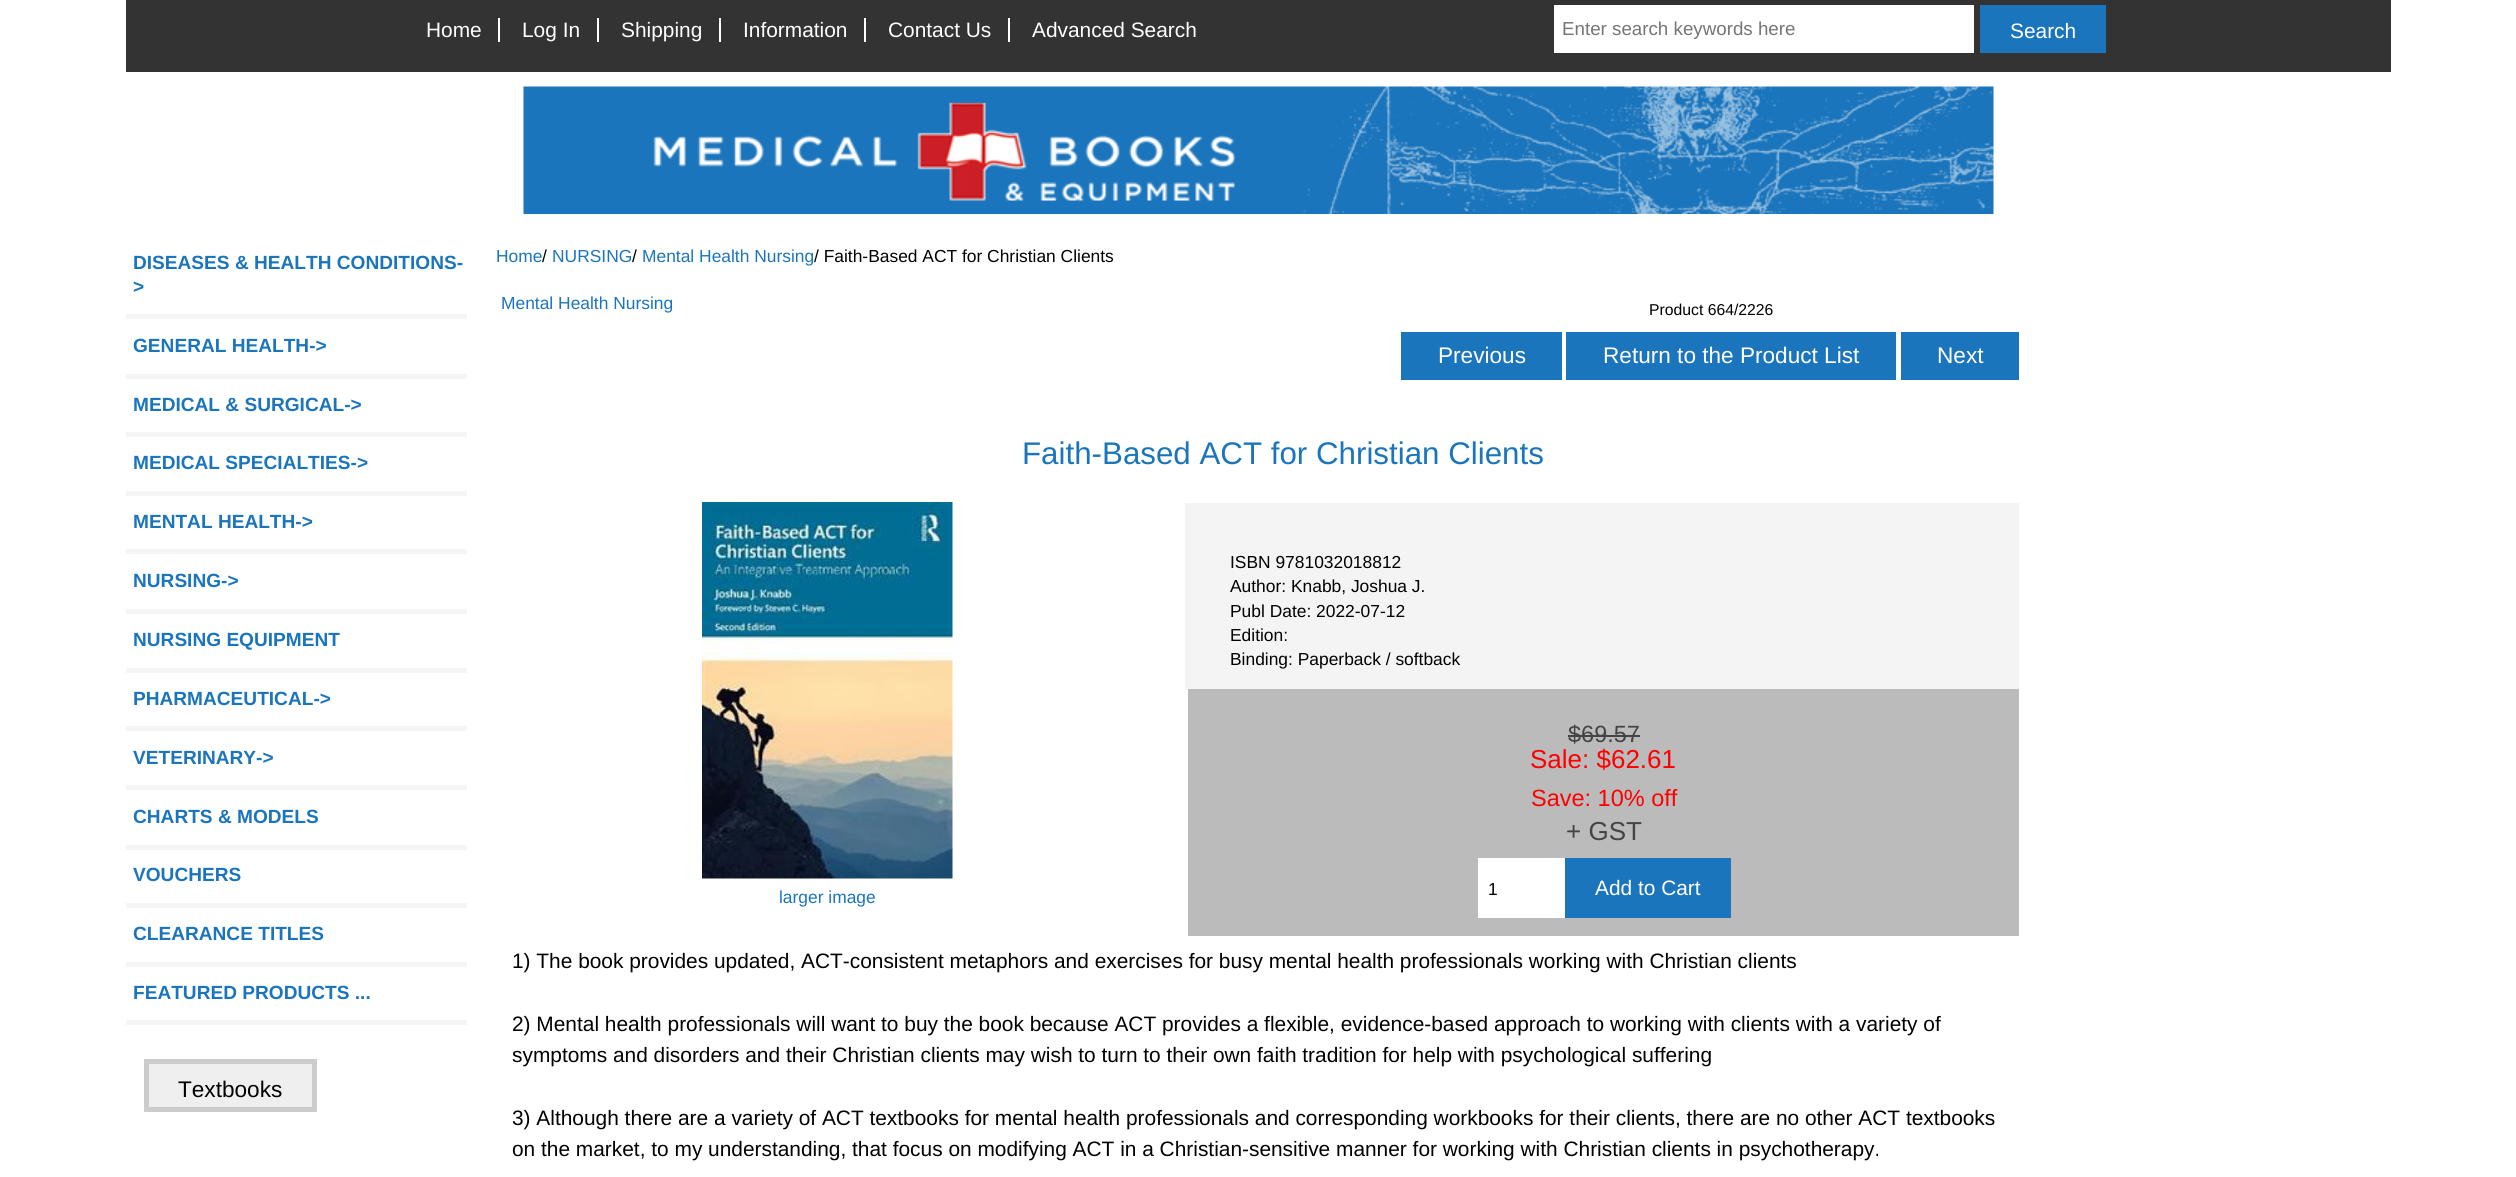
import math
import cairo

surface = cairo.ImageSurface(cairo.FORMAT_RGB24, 2516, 1177)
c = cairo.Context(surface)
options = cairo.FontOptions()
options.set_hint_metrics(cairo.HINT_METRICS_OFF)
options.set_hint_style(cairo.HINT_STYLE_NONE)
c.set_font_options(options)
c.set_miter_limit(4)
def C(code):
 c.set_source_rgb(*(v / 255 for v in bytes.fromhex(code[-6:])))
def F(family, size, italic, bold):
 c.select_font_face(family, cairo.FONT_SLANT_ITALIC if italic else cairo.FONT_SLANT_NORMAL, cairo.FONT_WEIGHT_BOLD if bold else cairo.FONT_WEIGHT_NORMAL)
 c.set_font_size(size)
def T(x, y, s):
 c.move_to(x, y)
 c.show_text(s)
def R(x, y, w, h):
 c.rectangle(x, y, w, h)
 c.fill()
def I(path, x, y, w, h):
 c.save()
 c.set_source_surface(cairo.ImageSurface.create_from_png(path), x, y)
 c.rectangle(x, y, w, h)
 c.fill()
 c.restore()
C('ffffff')
c.paint()
C('333333')
R(126,0,2265,72)
F('Liberation Sans',20.88,0,0)
C('ffffff')
T(426,37,'Home')
R(498,18,2,24)
T(522,37,'Log In')
R(597,18,2,24)
T(621,37,'Shipping')
R(719,18,2,24)
T(743,37,'Information')
R(864,18,2,24)
T(888,37,'Contact Us')
R(1008,18,2,24)
T(1032,37,'Advanced Search')
R(1554,5,420,48)
F('Liberation Sans',18.75,0,0)
C('757575')
T(1562,35,'Enter search keywords here')
C('1b75bc')
R(1980,5,126,48)
F('Liberation Sans',20.88,0,0)
C('ffffff')
T(2010,38,'Search')
I('1.png',523,86,1471,128)
C('f5f5f5')
R(126,314,341,5)
F('Liberation Sans',19.1,0,1)
C('1b75bc')
T(133,269,'DISEASES & HEALTH CONDITIONS-')
T(133,293,'>')
C('f5f5f5')
R(126,374,341,5)
C('1b75bc')
T(133,352,'GENERAL HEALTH->')
C('f5f5f5')
R(126,432,341,5)
C('1b75bc')
T(133,411,'MEDICAL & SURGICAL->')
C('f5f5f5')
R(126,491,341,5)
C('1b75bc')
T(133,469,'MEDICAL SPECIALTIES->')
C('f5f5f5')
R(126,549,341,5)
C('1b75bc')
T(133,528,'MENTAL HEALTH->')
C('f5f5f5')
R(126,609,341,5)
C('1b75bc')
T(133,587,'NURSING->')
C('f5f5f5')
R(126,668,341,5)
C('1b75bc')
T(133,646,'NURSING EQUIPMENT')
C('f5f5f5')
R(126,726,341,5)
C('1b75bc')
T(133,705,'PHARMACEUTICAL->')
C('f5f5f5')
R(126,785,341,5)
C('1b75bc')
T(133,764,'VETERINARY->')
C('f5f5f5')
R(126,845,341,5)
C('1b75bc')
T(133,823,'CHARTS & MODELS')
C('f5f5f5')
R(126,903,341,5)
C('1b75bc')
T(133,881,'VOUCHERS')
C('f5f5f5')
R(126,962,341,5)
C('1b75bc')
T(133,940,'CLEARANCE TITLES')
C('f5f5f5')
R(126,1020,341,5)
C('1b75bc')
T(133,999,'FEATURED PRODUCTS ...')
C('efefef')
c.rectangle(146.5,1061.5,168,48)
c.fill_preserve()
C('cccccc')
c.set_line_width(5)
c.stroke()
F('Liberation Sans',22.6,0,0)
C('000000')
T(178,1097,'Textbooks')
F('Liberation Sans',17.4,0,0)
C('1b75bc')
T(496,262,'Home')
C('000000')
T(542,262,'/')
C('1b75bc')
T(552,262,'NURSING')
C('000000')
T(632,262,'/')
C('1b75bc')
T(642,262,'Mental Health Nursing')
C('000000')
T(814,262,'/ Faith-Based ACT for Christian Clients')
C('1b75bc')
T(501,309,'Mental Health Nursing')
F('Liberation Sans',15.75,0,0)
C('000000')
T(1649,315,'Product 664/2226')
C('1b75bc')
R(1401,332,161,48)
F('Liberation Sans',22.6,0,0)
C('ffffff')
T(1438,363,'Previous')
C('1b75bc')
R(1566,332,330,48)
C('ffffff')
T(1603,363,'Return to the Product List')
C('1b75bc')
R(1901,332,118,48)
C('ffffff')
T(1937,363,'Next')
F('Liberation Sans',31.3,0,0)
C('1b75bc')
T(1022,464,'Faith-Based ACT for Christian Clients')
C('f4f4f4')
R(1185,503,834,186)
F('Liberation Sans',17.4,0,0)
C('000000')
T(1230,568,'ISBN 9781032018812')
T(1230,592,'Author: Knabb, Joshua J.')
T(1230,617,'Publ Date: 2022-07-12')
T(1230,641,'Edition:')
T(1230,665,'Binding: Paperback / softback')
C('bbbbbb')
R(1188,689,831,247)
F('Liberation Sans',23.5,0,0)
C('444444')
T(1568,742,'$69.57')
R(1568,735,72,2)
F('Liberation Sans',26,0,0)
C('ff0000')
T(1530,768,'Sale: $62.61')
F('Liberation Sans',23.5,0,0)
T(1531,806,'Save: 10% off')
F('Liberation Sans',26,0,0)
C('444444')
T(1566,840,'+ GST')
C('ffffff')
R(1478,858,87,60)
F('Liberation Sans',17.4,0,0)
C('000000')
T(1488,895,'1')
C('1b75bc')
R(1565,858,166,60)
F('Liberation Sans',20.88,0,0)
C('ffffff')
T(1595,895,'Add to Cart')
I('2.png',702,502,251,377)
F('Liberation Sans',17.4,0,0)
C('1b75bc')
T(779,903,'larger image')
F('Liberation Sans',20.88,0,0)
C('000000')
T(512,968,'1) The book provides updated, ACT-consistent metaphors and exercises for busy mental health professionals working with Christian clients')
T(512,1031,'2) Mental health professionals will want to buy the book because ACT provides a flexible, evidence-based approach to working with clients with a variety of')
T(512,1062,'symptoms and disorders and their Christian clients may wish to turn to their own faith tradition for help with psychological suffering')
T(512,1125,'3) Although there are a variety of ACT textbooks for mental health professionals and corresponding workbooks for their clients, there are no other ACT textbooks')
T(512,1156,'on the market, to my understanding, that focus on modifying ACT in a Christian-sensitive manner for working with Christian clients in psychotherapy.')
surface.write_to_png('o.png')
